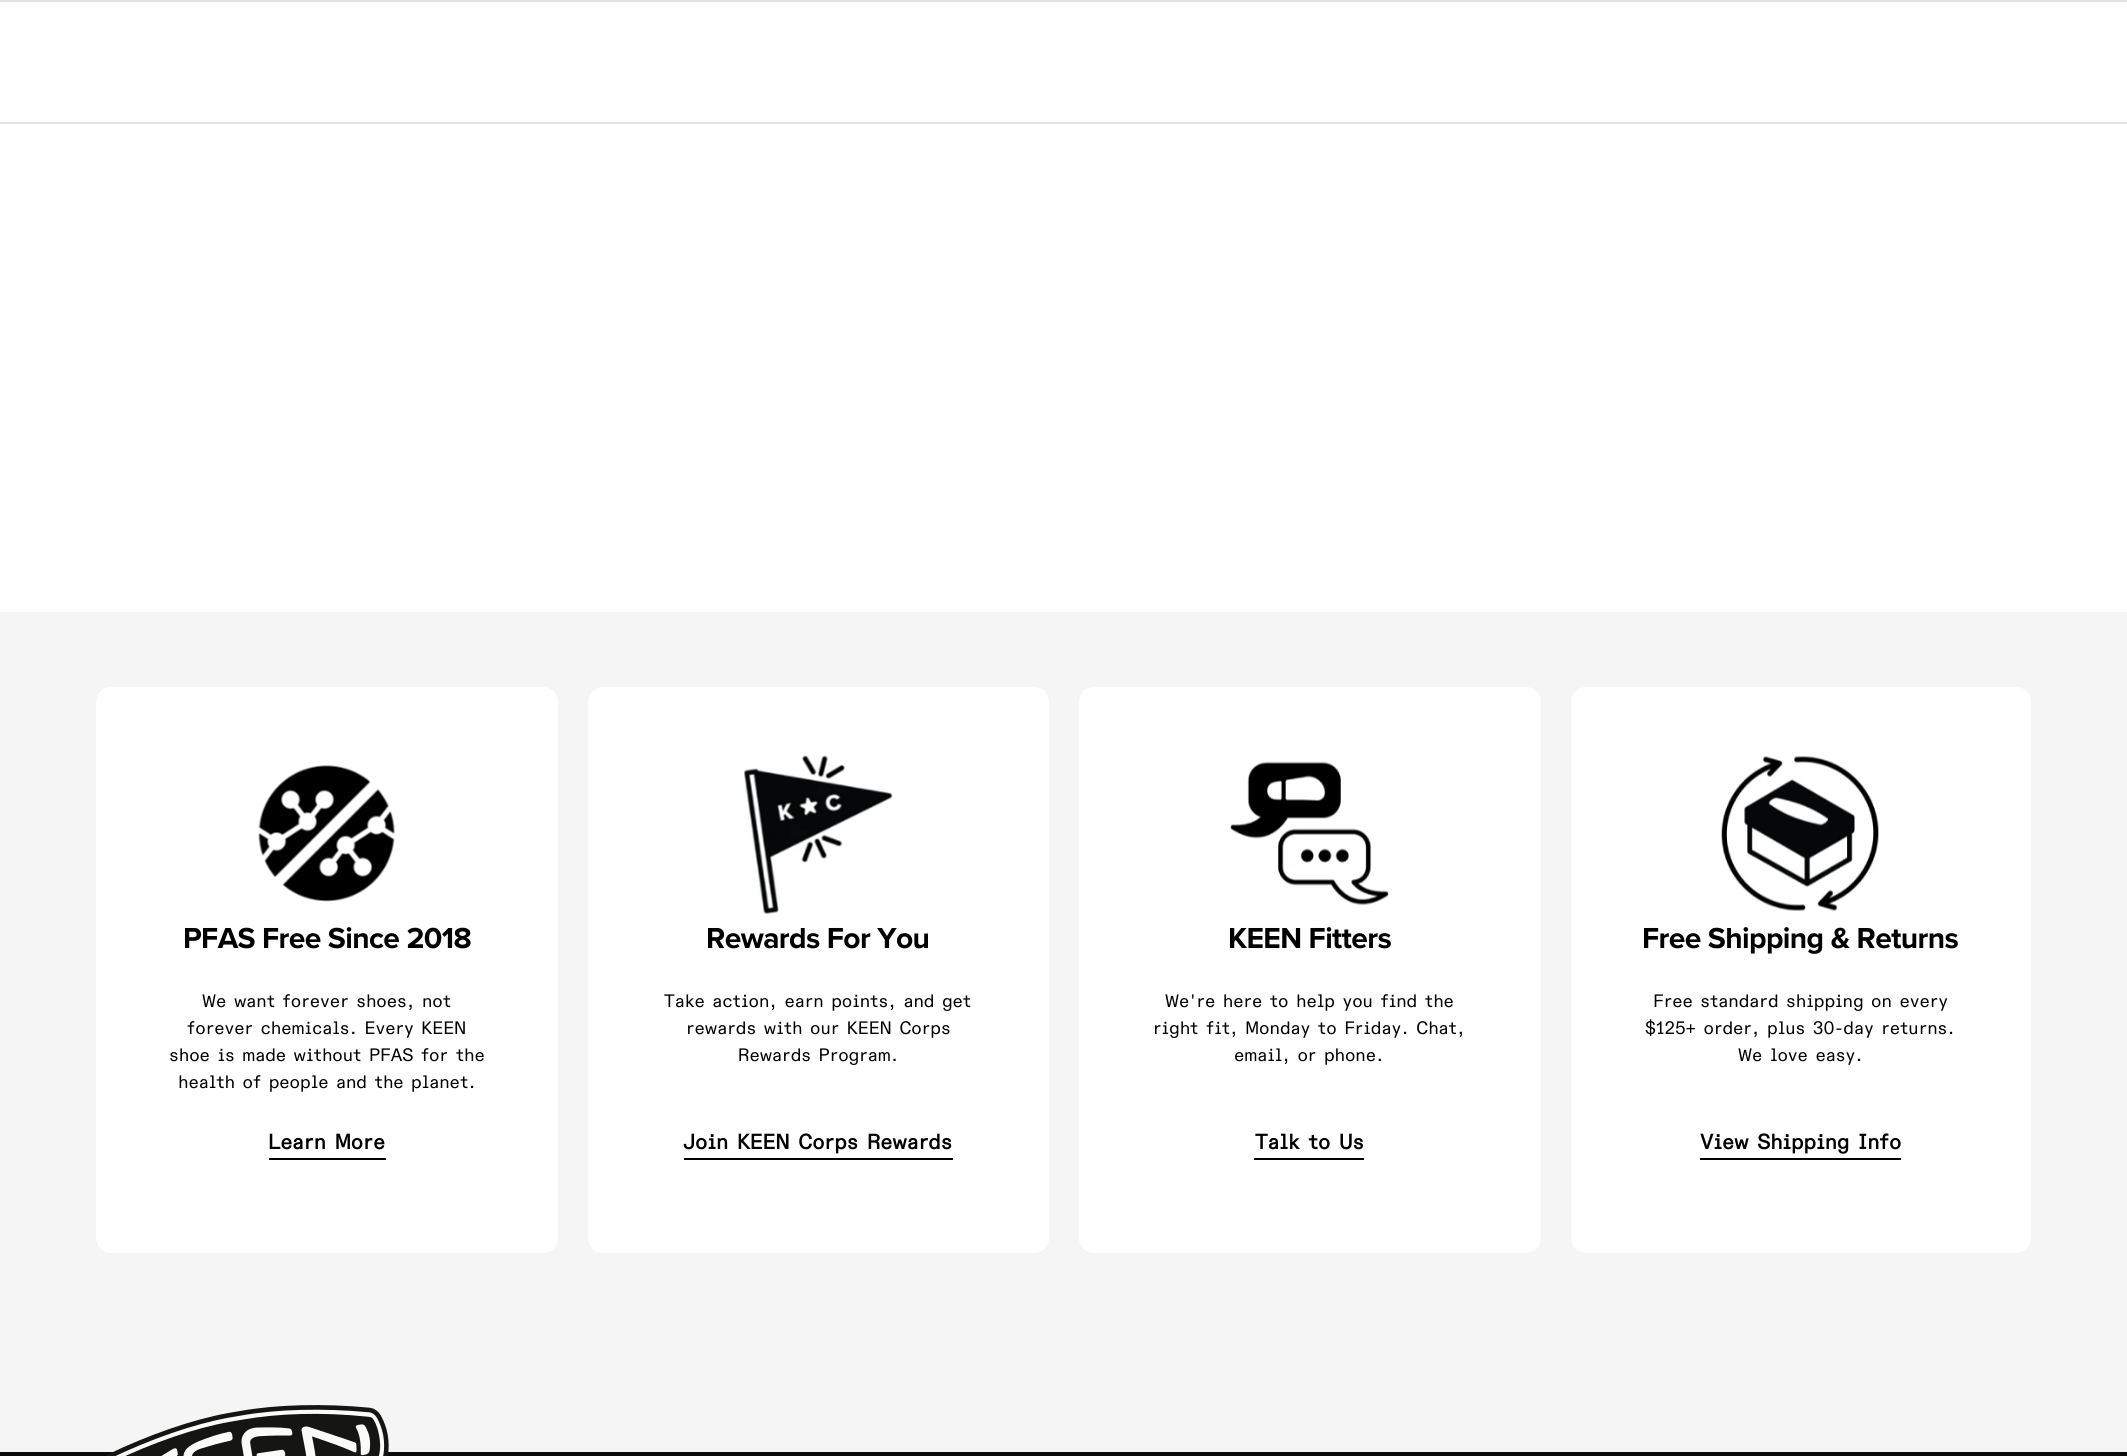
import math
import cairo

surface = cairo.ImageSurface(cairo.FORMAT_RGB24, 2127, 1456)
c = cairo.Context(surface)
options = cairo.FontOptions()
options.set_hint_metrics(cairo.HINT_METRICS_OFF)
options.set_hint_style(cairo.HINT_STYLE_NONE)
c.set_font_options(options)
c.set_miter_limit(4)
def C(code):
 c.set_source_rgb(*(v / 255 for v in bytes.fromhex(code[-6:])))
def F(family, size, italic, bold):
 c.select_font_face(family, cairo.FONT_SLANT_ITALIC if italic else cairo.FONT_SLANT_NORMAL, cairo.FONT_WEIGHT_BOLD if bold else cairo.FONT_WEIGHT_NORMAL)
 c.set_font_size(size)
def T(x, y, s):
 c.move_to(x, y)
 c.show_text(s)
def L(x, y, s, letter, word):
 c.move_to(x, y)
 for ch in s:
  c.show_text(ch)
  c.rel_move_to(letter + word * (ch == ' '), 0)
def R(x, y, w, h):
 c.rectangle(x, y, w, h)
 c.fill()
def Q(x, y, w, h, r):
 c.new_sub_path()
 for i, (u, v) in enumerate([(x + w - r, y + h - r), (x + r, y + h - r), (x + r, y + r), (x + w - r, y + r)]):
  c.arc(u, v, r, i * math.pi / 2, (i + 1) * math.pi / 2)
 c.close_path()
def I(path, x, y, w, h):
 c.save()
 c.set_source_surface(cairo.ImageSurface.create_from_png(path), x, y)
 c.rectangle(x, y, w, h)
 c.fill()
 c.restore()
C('ffffff')
c.paint()
C('e3e3e3')
R(0,0,2127,2)
R(0,122,2127,2)
C('f5f5f5')
R(0,612,2127,840)
C('ffffff')
Q(96,687,462,566,15)
c.fill()
I('1.png',258,765,137,137)
F('Proxima Nova',30,0,1)
C('000000')
L(183,948,'PFAS Free Since 2018',-.6,0)
F('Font',18,0,0)
T(202,1007,'We want forever shoes, not')
T(187,1034,'forever chemicals. Every KEEN')
T(169,1061,'shoe is made without PFAS for the')
T(178,1088,'health of people and the planet.')
R(269,1158,117,2)
F('Font',21,0,1)
T(268,1149,'Learn More')
C('ffffff')
Q(588,687,461,566,15)
c.fill()
I('2.png',744,755,149,159)
F('Proxima Nova',30,0,1)
C('000000')
L(706,948,'Rewards For You',-.6,0)
F('Font',18,0,0)
T(664,1007,'Take action, earn points, and get')
T(686,1034,'rewards with our KEEN Corps')
T(738,1061,'Rewards Program.')
R(684,1158,269,2)
F('Font',21,0,1)
T(683,1149,'Join KEEN Corps Rewards')
C('ffffff')
Q(1079,687,462,566,15)
c.fill()
I('3.png',1230,761,159,145)
F('Proxima Nova',30,0,1)
C('000000')
L(1228,948,'KEEN Fitters',-.6,0)
F('Font',18,0,0)
T(1165,1007,'We\'re here to help you find the')
T(1153,1034,'right fit, Monday to Friday. Chat,')
T(1234,1061,'email, or phone.')
R(1254,1158,110,2)
F('Font',21,0,1)
T(1255,1149,'Talk to Us')
C('ffffff')
Q(1571,687,460,566,15)
c.fill()
I('4.png',1721,755,158,156)
F('Proxima Nova',30,0,1)
C('000000')
L(1642,948,'Free Shipping & Returns',-.6,0)
F('Font',18,0,0)
T(1653,1007,'Free standard shipping on every')
T(1645,1034,'$125+ order, plus 30-day returns.')
T(1738,1061,'We love easy.')
R(1700,1158,201,2)
F('Font',21,0,1)
T(1700,1149,'View Shipping Info')
C('0a0a0a')
R(0,1452,2127,4)
I('5.png',106,1405,283,51)
surface.write_to_png('o.png')
